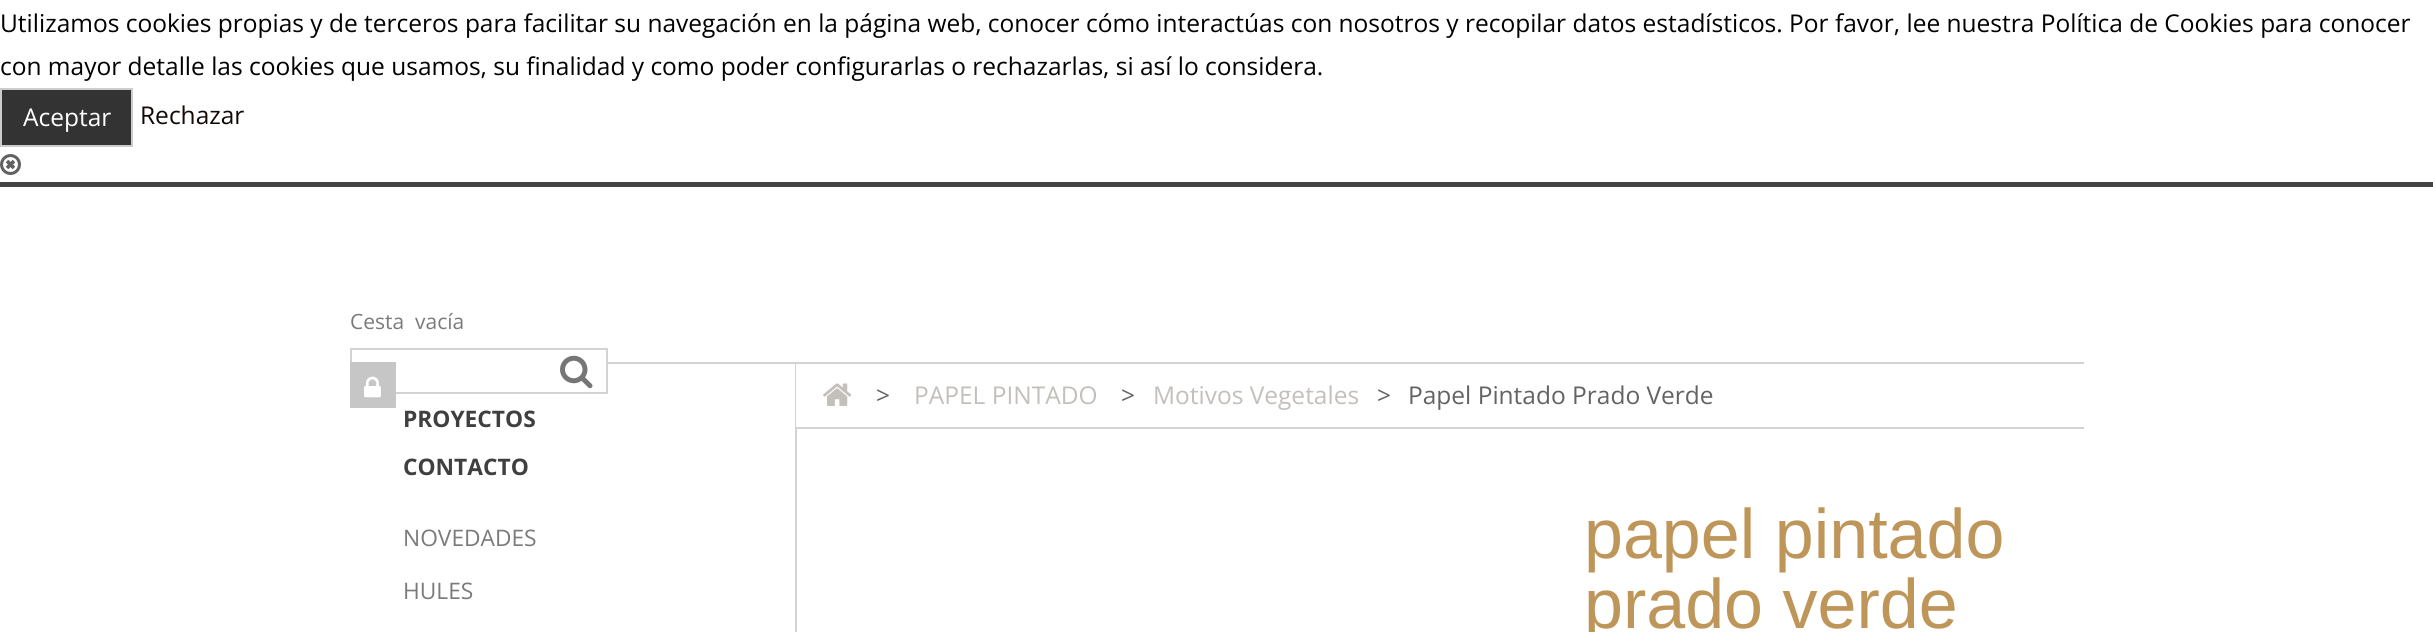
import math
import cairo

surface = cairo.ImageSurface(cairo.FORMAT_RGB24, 2433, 632)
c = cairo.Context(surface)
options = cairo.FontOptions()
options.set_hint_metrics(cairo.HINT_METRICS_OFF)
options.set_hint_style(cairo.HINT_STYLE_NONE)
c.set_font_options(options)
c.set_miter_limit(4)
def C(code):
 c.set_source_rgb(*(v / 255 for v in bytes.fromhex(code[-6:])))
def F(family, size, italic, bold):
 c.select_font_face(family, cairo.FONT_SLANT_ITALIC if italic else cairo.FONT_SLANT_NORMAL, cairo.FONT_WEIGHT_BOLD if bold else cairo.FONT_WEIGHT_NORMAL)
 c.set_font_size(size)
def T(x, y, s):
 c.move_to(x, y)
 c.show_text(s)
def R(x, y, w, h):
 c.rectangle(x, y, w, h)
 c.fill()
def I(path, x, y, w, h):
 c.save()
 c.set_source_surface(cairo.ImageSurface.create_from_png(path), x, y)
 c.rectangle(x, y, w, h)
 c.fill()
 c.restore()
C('ffffff')
c.paint()
C('444444')
R(0,182,2433,5)
F('Open Sans',24.5,0,0)
C('000000')
T(0,32,'Utilizamos cookies propias y de terceros para facilitar su navegación en la página web, conocer cómo interactúas con nosotros y recopilar datos estadísticos. Por favor, lee nuestra Política de Cookies para conocer')
T(0,75,'con mayor detalle las cookies que usamos, su finalidad y como poder configurarlas o rechazarlas, si así lo considera.')
C('333333')
c.rectangle(1,89,131,57)
c.fill_preserve()
C('cccccc')
c.stroke()
C('ffffff')
T(23,126,'Aceptar')
C('140805')
T(140,124,'Rechazar')
I('1.png',0,154,21,21)
F('Open Sans',21,0,0)
C('7a7a7a')
T(350,329,'Cesta')
T(415,329,'vacía')
C('d3d3d3')
R(350,348,257,2)
R(606,348,2,46)
R(396,392,211,2)
I('2.png',560,355,33,34)
R(350,348,2,14)
C('c6c6c6')
R(350,362,46,46)
I('3.png',364,376,17,22)
C('d3d3d3')
R(608,362,1476,2)
R(795,364,2,268)
F('Open Sans',22.75,0,1)
C('3f3f3f')
T(403,427,'PROYECTOS')
T(403,475,'CONTACTO')
F('Open Sans',22.75,0,0)
C('7a7a7a')
T(403,546,'NOVEDADES')
T(403,599,'HULES')
C('ffffff')
R(796,364,1,63)
C('d3d3d3')
R(796,427,1288,2)
I('4.png',823,383,29,23)
F('Open Sans',24.5,0,0)
C('636363')
T(876,404,'>')
C('c3c0bb')
T(914,404,'PAPEL PINTADO')
C('636363')
T(1121,404,'>')
C('c3c0bb')
T(1153,404,'Motivos Vegetales')
C('636363')
T(1377,404,'>')
T(1408,404,'Papel Pintado Prado Verde')
F('Liberation Sans',70,0,0)
C('bf9659')
T(1584,558,'papel pintado')
T(1584,628,'prado verde')
surface.write_to_png('o.png')
